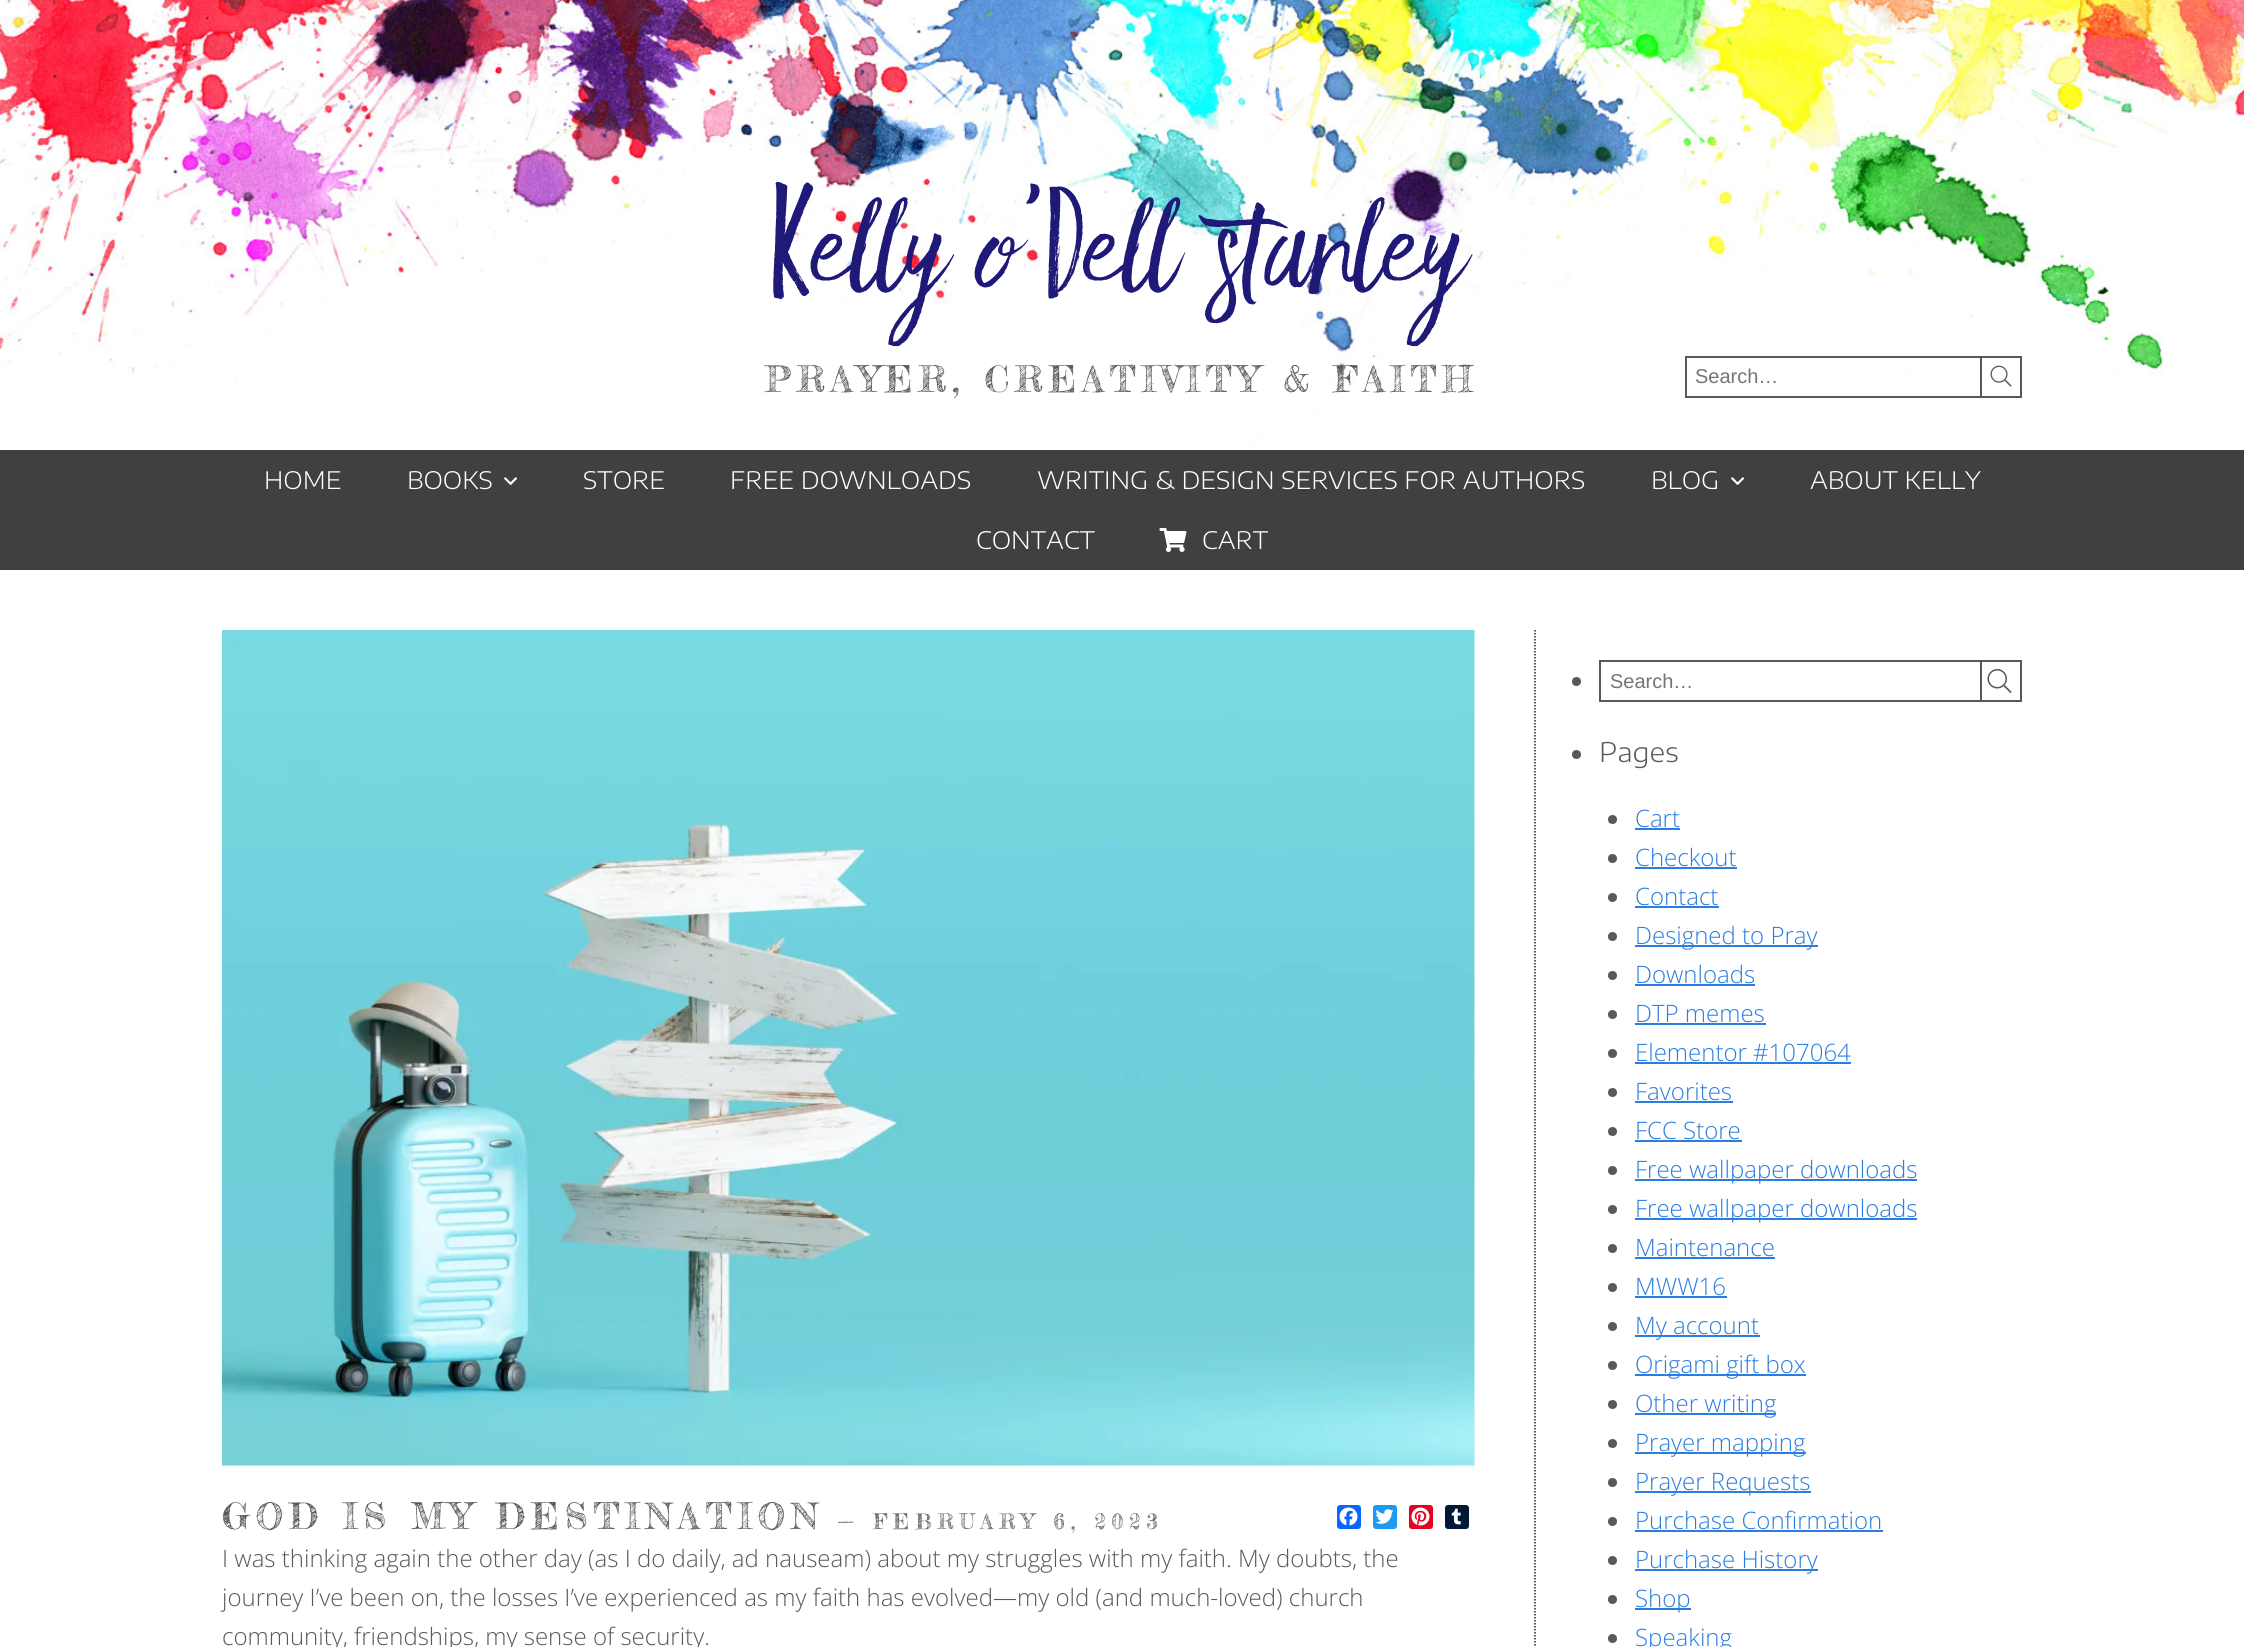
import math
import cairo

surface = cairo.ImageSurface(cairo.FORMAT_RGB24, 2244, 1647)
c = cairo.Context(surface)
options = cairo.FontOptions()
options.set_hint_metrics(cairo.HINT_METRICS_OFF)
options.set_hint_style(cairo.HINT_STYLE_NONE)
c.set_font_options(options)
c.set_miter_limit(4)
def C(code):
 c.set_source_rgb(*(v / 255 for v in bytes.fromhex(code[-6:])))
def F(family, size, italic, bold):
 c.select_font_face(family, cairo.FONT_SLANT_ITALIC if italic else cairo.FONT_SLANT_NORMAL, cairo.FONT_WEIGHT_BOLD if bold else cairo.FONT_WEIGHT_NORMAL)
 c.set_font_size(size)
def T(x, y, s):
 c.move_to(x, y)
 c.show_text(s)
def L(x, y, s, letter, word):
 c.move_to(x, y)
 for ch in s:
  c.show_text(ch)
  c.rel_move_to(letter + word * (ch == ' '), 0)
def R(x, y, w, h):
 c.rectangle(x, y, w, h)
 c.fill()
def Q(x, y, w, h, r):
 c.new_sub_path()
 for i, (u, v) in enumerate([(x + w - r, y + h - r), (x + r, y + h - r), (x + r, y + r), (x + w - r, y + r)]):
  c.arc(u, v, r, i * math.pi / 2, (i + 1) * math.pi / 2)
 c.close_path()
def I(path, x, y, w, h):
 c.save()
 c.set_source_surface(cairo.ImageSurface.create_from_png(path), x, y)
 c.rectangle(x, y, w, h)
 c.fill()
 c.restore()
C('404041')
c.paint()
C('ffffff')
R(0,446,2244,4)
I('1.png',0,0,2244,446)
I('2.png',773,182,700,165)
F('Fredericka the Great',36,0,0)
C('58595b')
L(765,392,'PRAYER, CREATIVITY & FAITH',6.1,0)
C('ffffff')
R(1948,362,3,3)
c.rectangle(1686,357,335,40)
C('58595b')
c.stroke()
c.rectangle(1981,357,40,40)
c.stroke()
F('Liberation Sans',20,0,0)
C('757575')
T(1695,383,'Search…')
I('3.png',1990,365,22,22)
F('Encode Sans Expanded Light',24,0,0)
C('ffffff')
T(264,489,'HOME')
T(407,489,'BOOKS')
I('4.png',504,477,14,8)
T(583,489,'STORE')
T(730,489,'FREE DOWNLOADS')
T(1037,489,'WRITING & DESIGN SERVICES FOR AUTHORS')
T(1651,489,'BLOG')
I('4.png',1731,477,14,8)
T(1810,489,'ABOUT KELLY')
T(976,549,'CONTACT')
I('5.png',1159,528,28,24)
T(1202,549,'CART')
R(0,570,2244,1077)
c.new_path()
c.move_to(1535,630)
c.line_to(1535,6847.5)
C('231f20')
c.set_line_width(1.5)
c.set_dash([1.5,1.5])
c.stroke()
I('6.png',222,630,1253,836)
F('Fredericka the Great',36,0,0)
C('58595b')
L(222,1529,'GOD IS MY DESTINATION',6.1,0)
F('Fredericka the Great',21,0,0)
L(838,1529,'— FEBRUARY 6, 2023',6.1,0)
C('0866ff')
Q(1337,1505,24,24,3)
c.fill()
I('7.png',1339,1507,19,19)
C('1d9bf0')
Q(1373,1505,24,24,3)
c.fill()
I('8.png',1375,1509,19,15)
C('e60023')
Q(1409,1505,24,24,3)
c.fill()
I('9.png',1411,1507,19,19)
C('001935')
Q(1445,1505,24,24,3)
c.fill()
I('10.png',1451,1508,10,17)
F('Open Sans Light',24,0,0)
C('58595b')
T(222,1567,'I was thinking again the other day (as I do daily, ad nauseam) about my struggles with my faith. My doubts, the')
T(222,1606,'journey I’ve been on, the losses I’ve experienced as my faith has evolved—my old (and much-loved) church')
T(222,1645,'community, friendships, my sense of security.')
c.new_path()
c.arc(1576.5,681.5,4.5,0,2 * math.pi)
c.fill()
c.rectangle(1600,661,421,40)
c.set_line_width(2)
c.set_dash([])
c.stroke()
c.rectangle(1981,661,40,40)
c.stroke()
F('Liberation Sans',20,0,0)
C('757575')
T(1610,688,'Search…')
I('11.png',1987,669,25,24)
C('58595b')
c.arc(1576.5,754.5,4.5,0,2 * math.pi)
c.fill()
F('Encode Sans Expanded Light',27,0,0)
T(1599,762,'Pages')
c.new_path()
c.arc(1612.5,819.5,4.5,0,2 * math.pi)
c.fill()
F('Open Sans Light',24,0,0)
C('2a7de1')
T(1635,827,'Cart')
R(1635,828,45,2)
C('58595b')
c.new_path()
c.arc(1612.5,858.5,4.5,0,2 * math.pi)
c.fill()
C('2a7de1')
T(1635,866,'Checkout')
R(1635,867,102,2)
C('58595b')
c.new_path()
c.arc(1612.5,897.5,4.5,0,2 * math.pi)
c.fill()
C('2a7de1')
T(1635,905,'Contact')
R(1635,906,84,2)
C('58595b')
c.new_path()
c.arc(1612.5,936.5,4.5,0,2 * math.pi)
c.fill()
C('2a7de1')
R(1635,945,183,2)
T(1635,944,'Designed to Pray')
C('58595b')
c.new_path()
c.arc(1612.5,975.5,4.5,0,2 * math.pi)
c.fill()
C('2a7de1')
T(1635,983,'Downloads')
R(1635,984,120,2)
C('58595b')
c.new_path()
c.arc(1612.5,1014.5,4.5,0,2 * math.pi)
c.fill()
C('2a7de1')
T(1635,1022,'DTP memes')
R(1635,1023,131,2)
C('58595b')
c.new_path()
c.arc(1612.5,1053.5,4.5,0,2 * math.pi)
c.fill()
C('2a7de1')
T(1635,1061,'Elementor #107064')
R(1635,1062,216,2)
C('58595b')
c.new_path()
c.arc(1612.5,1092.5,4.5,0,2 * math.pi)
c.fill()
C('2a7de1')
T(1635,1100,'Favorites')
R(1635,1101,98,2)
C('58595b')
c.new_path()
c.arc(1612.5,1131.5,4.5,0,2 * math.pi)
c.fill()
C('2a7de1')
T(1635,1139,'FCC Store')
R(1635,1140,107,2)
C('58595b')
c.new_path()
c.arc(1612.5,1170.5,4.5,0,2 * math.pi)
c.fill()
C('2a7de1')
R(1635,1179,282,2)
T(1635,1178,'Free wallpaper downloads')
C('58595b')
c.new_path()
c.arc(1612.5,1209.5,4.5,0,2 * math.pi)
c.fill()
C('2a7de1')
R(1635,1218,282,2)
T(1635,1217,'Free wallpaper downloads')
C('58595b')
c.new_path()
c.arc(1612.5,1248.5,4.5,0,2 * math.pi)
c.fill()
C('2a7de1')
T(1635,1256,'Maintenance')
R(1635,1257,140,2)
C('58595b')
c.new_path()
c.arc(1612.5,1287.5,4.5,0,2 * math.pi)
c.fill()
C('2a7de1')
T(1635,1295,'MWW16')
R(1635,1296,92,2)
C('58595b')
c.new_path()
c.arc(1612.5,1326.5,4.5,0,2 * math.pi)
c.fill()
C('2a7de1')
R(1635,1335,125,2)
T(1635,1334,'My account')
C('58595b')
c.new_path()
c.arc(1612.5,1365.5,4.5,0,2 * math.pi)
c.fill()
C('2a7de1')
R(1635,1374,171,2)
T(1635,1373,'Origami gift box')
C('58595b')
c.new_path()
c.arc(1612.5,1404.5,4.5,0,2 * math.pi)
c.fill()
C('2a7de1')
R(1635,1413,141,2)
T(1635,1412,'Other writing')
C('58595b')
c.new_path()
c.arc(1612.5,1443.5,4.5,0,2 * math.pi)
c.fill()
C('2a7de1')
R(1635,1452,171,2)
T(1635,1451,'Prayer mapping')
C('58595b')
c.new_path()
c.arc(1612.5,1482.5,4.5,0,2 * math.pi)
c.fill()
C('2a7de1')
R(1635,1491,176,2)
T(1635,1490,'Prayer Requests')
C('58595b')
c.new_path()
c.arc(1612.5,1521.5,4.5,0,2 * math.pi)
c.fill()
C('2a7de1')
T(1635,1529,'Purchase Confirmation')
R(1635,1530,248,2)
C('58595b')
c.new_path()
c.arc(1612.5,1560.5,4.5,0,2 * math.pi)
c.fill()
C('2a7de1')
R(1635,1569,183,2)
T(1635,1568,'Purchase History')
C('58595b')
c.new_path()
c.arc(1612.5,1599.5,4.5,0,2 * math.pi)
c.fill()
C('2a7de1')
R(1635,1608,56,2)
T(1635,1607,'Shop')
C('58595b')
c.new_path()
c.arc(1612.5,1638.5,4.5,0,2 * math.pi)
c.fill()
C('2a7de1')
T(1635,1646,'Speaking')
surface.write_to_png('o.png')
